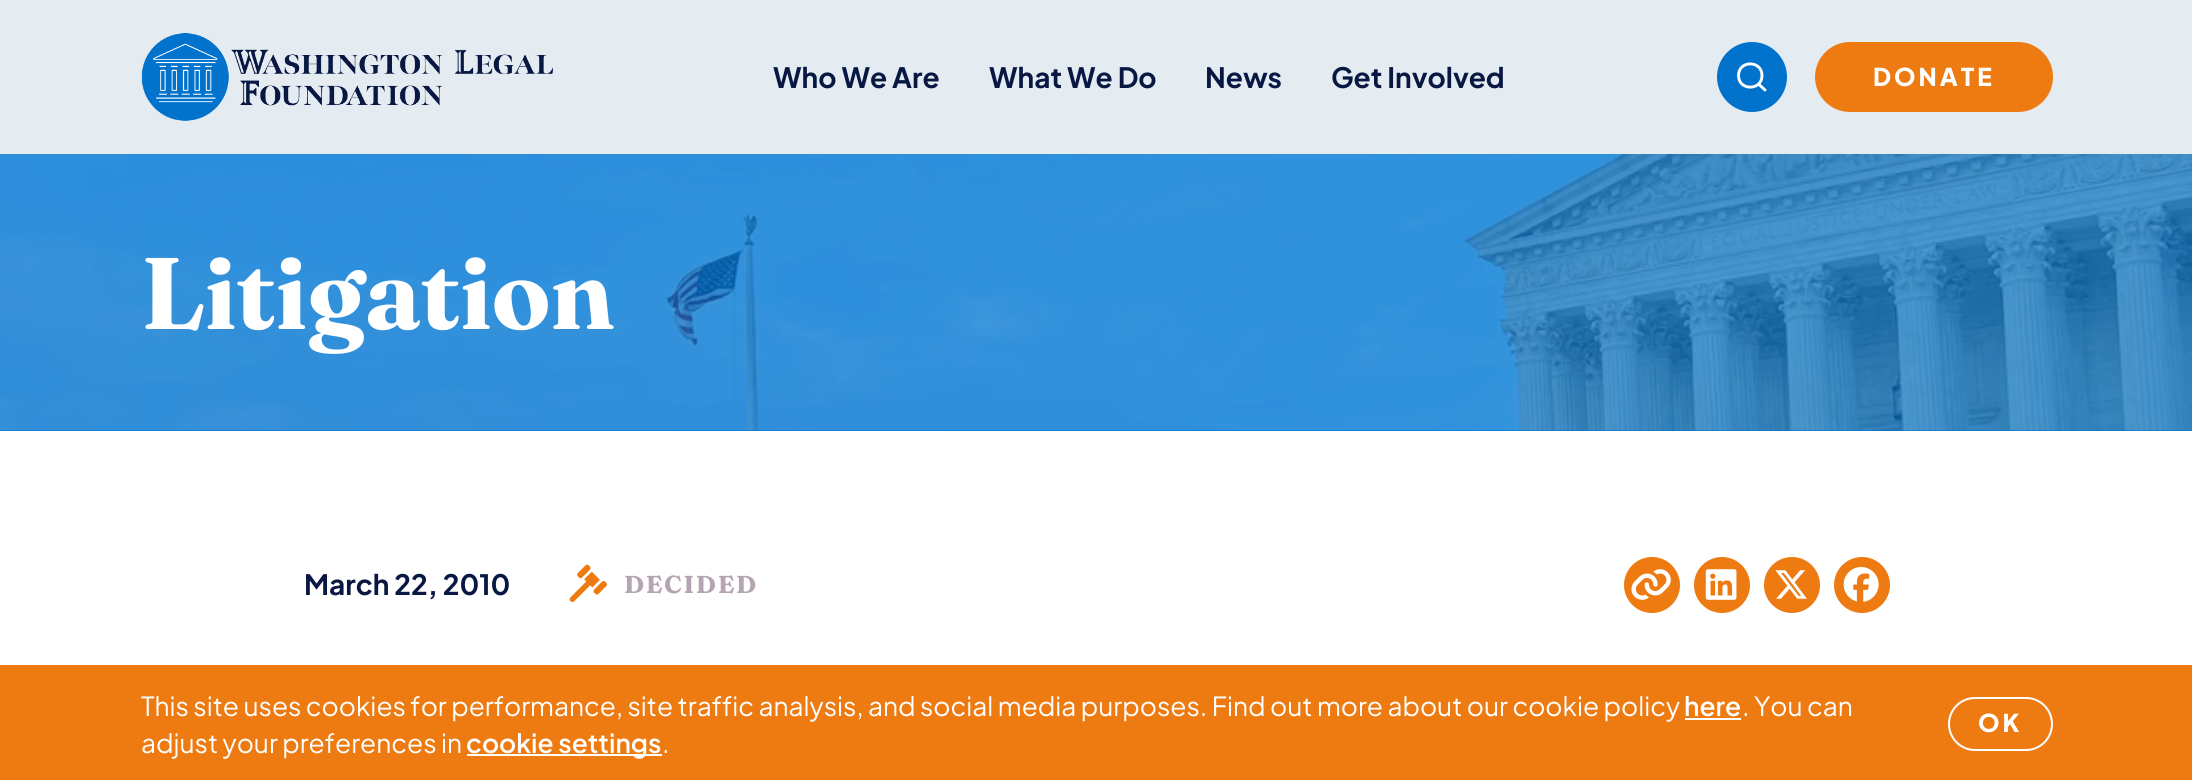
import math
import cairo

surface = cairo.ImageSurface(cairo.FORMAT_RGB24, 2192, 780)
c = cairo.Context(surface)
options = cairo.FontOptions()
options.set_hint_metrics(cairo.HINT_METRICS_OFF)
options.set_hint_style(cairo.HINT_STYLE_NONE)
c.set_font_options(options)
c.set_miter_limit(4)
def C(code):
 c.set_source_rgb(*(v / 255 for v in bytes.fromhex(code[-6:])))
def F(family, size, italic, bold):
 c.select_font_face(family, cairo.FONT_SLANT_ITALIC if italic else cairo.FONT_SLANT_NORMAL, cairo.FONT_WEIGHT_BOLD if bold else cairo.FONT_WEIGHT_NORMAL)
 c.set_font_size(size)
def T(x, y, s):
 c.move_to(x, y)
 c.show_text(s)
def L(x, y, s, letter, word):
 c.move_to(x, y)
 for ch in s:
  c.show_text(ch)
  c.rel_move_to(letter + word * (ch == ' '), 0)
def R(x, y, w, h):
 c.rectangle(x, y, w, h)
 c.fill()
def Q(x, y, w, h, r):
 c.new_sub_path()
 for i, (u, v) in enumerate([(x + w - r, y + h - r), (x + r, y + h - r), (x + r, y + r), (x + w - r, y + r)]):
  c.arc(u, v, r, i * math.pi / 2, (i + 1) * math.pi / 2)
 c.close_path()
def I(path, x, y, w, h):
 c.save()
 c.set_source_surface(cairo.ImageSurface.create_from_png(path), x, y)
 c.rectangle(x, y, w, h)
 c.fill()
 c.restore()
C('ffffff')
c.paint()
C('e4ebf1')
R(0,0,2192,154)
I('1.png',141,33,412,88)
F('Plus Jakarta Sans',28,0,1)
C('081843')
T(773,88,'Who We Are')
T(989,88,'What We Do')
T(1205,88,'News')
T(1331,88,'Get Involved')
C('0273cd')
c.new_path()
c.arc(1752,77,34,0,2 * math.pi)
c.fill_preserve()
c.stroke()
c.new_path()
c.move_to(1765,90)
c.line_to(1758.5,84)
c.move_to(1762,75.5)
c.curve_to(1762,91,1738.5,91,1738.5,75.5)
c.curve_to(1738.5,60,1762,60,1762,75.5)
c.close_path()
C('ffffff')
c.set_line_width(2.9)
c.set_line_cap(cairo.LINE_CAP_ROUND)
c.set_line_join(cairo.LINE_JOIN_ROUND)
c.stroke()
C('ed7b12')
Q(1816,43,236,68,34)
c.fill_preserve()
c.set_line_width(2)
c.set_line_cap(cairo.LINE_CAP_BUTT)
c.set_line_join(cairo.LINE_JOIN_MITER)
c.stroke()
F('Plus Jakarta Sans ExtraBold',24.5,0,0)
C('ffffff')
L(1873,86,'DONATE',3,0)
C('0273cd')
R(0,154,2192,277)
I('2.png',0,154,2192,277)
F('Fraunces',101.5,0,1)
C('ffffff')
T(141,329,'Litigation')
F('Plus Jakarta Sans',28,0,1)
C('081843')
T(304,595,'March 22, 2010')
I('3.png',569,564,38,38)
F('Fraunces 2',24.5,0,1)
C('b5a5b2')
L(624,593,'DECIDED',1.75,0)
C('ed7b12')
c.new_path()
c.arc(1652,585,28,0,2 * math.pi)
c.fill()
I('4.png',1631,569,40,31)
c.arc(1722,585,28,0,2 * math.pi)
c.fill()
I('5.png',1705,569,32,31)
c.arc(1792,585,28,0,2 * math.pi)
c.fill()
I('6.png',1775,570,32,29)
c.arc(1862,585,28,0,2 * math.pi)
c.fill()
I('7.png',1843,567,36,35)
R(0,665,2192,115)
F('Plus Jakarta Sans',26.25,0,0)
C('ffffff')
T(141,716,'This site uses cookies for performance, site traffic analysis, and social media purposes. Find out more about our cookie policy')
F('Plus Jakarta Sans SemiBold',26.25,0,0)
T(1684,716,'here')
R(1685,718,56,2)
F('Plus Jakarta Sans',26.25,0,0)
T(1742,716,'. You can')
T(141,753,'adjust your preferences in')
R(467,754,195,2)
F('Plus Jakarta Sans SemiBold',26.25,0,0)
T(466,753,'cookie settings')
F('Plus Jakarta Sans',26.25,0,0)
T(662,753,'.')
Q(1949,698,103,52,26)
c.stroke()
F('Plus Jakarta Sans ExtraBold',24.5,0,0)
L(1978,732,'OK',3,0)
surface.write_to_png('o.png')
